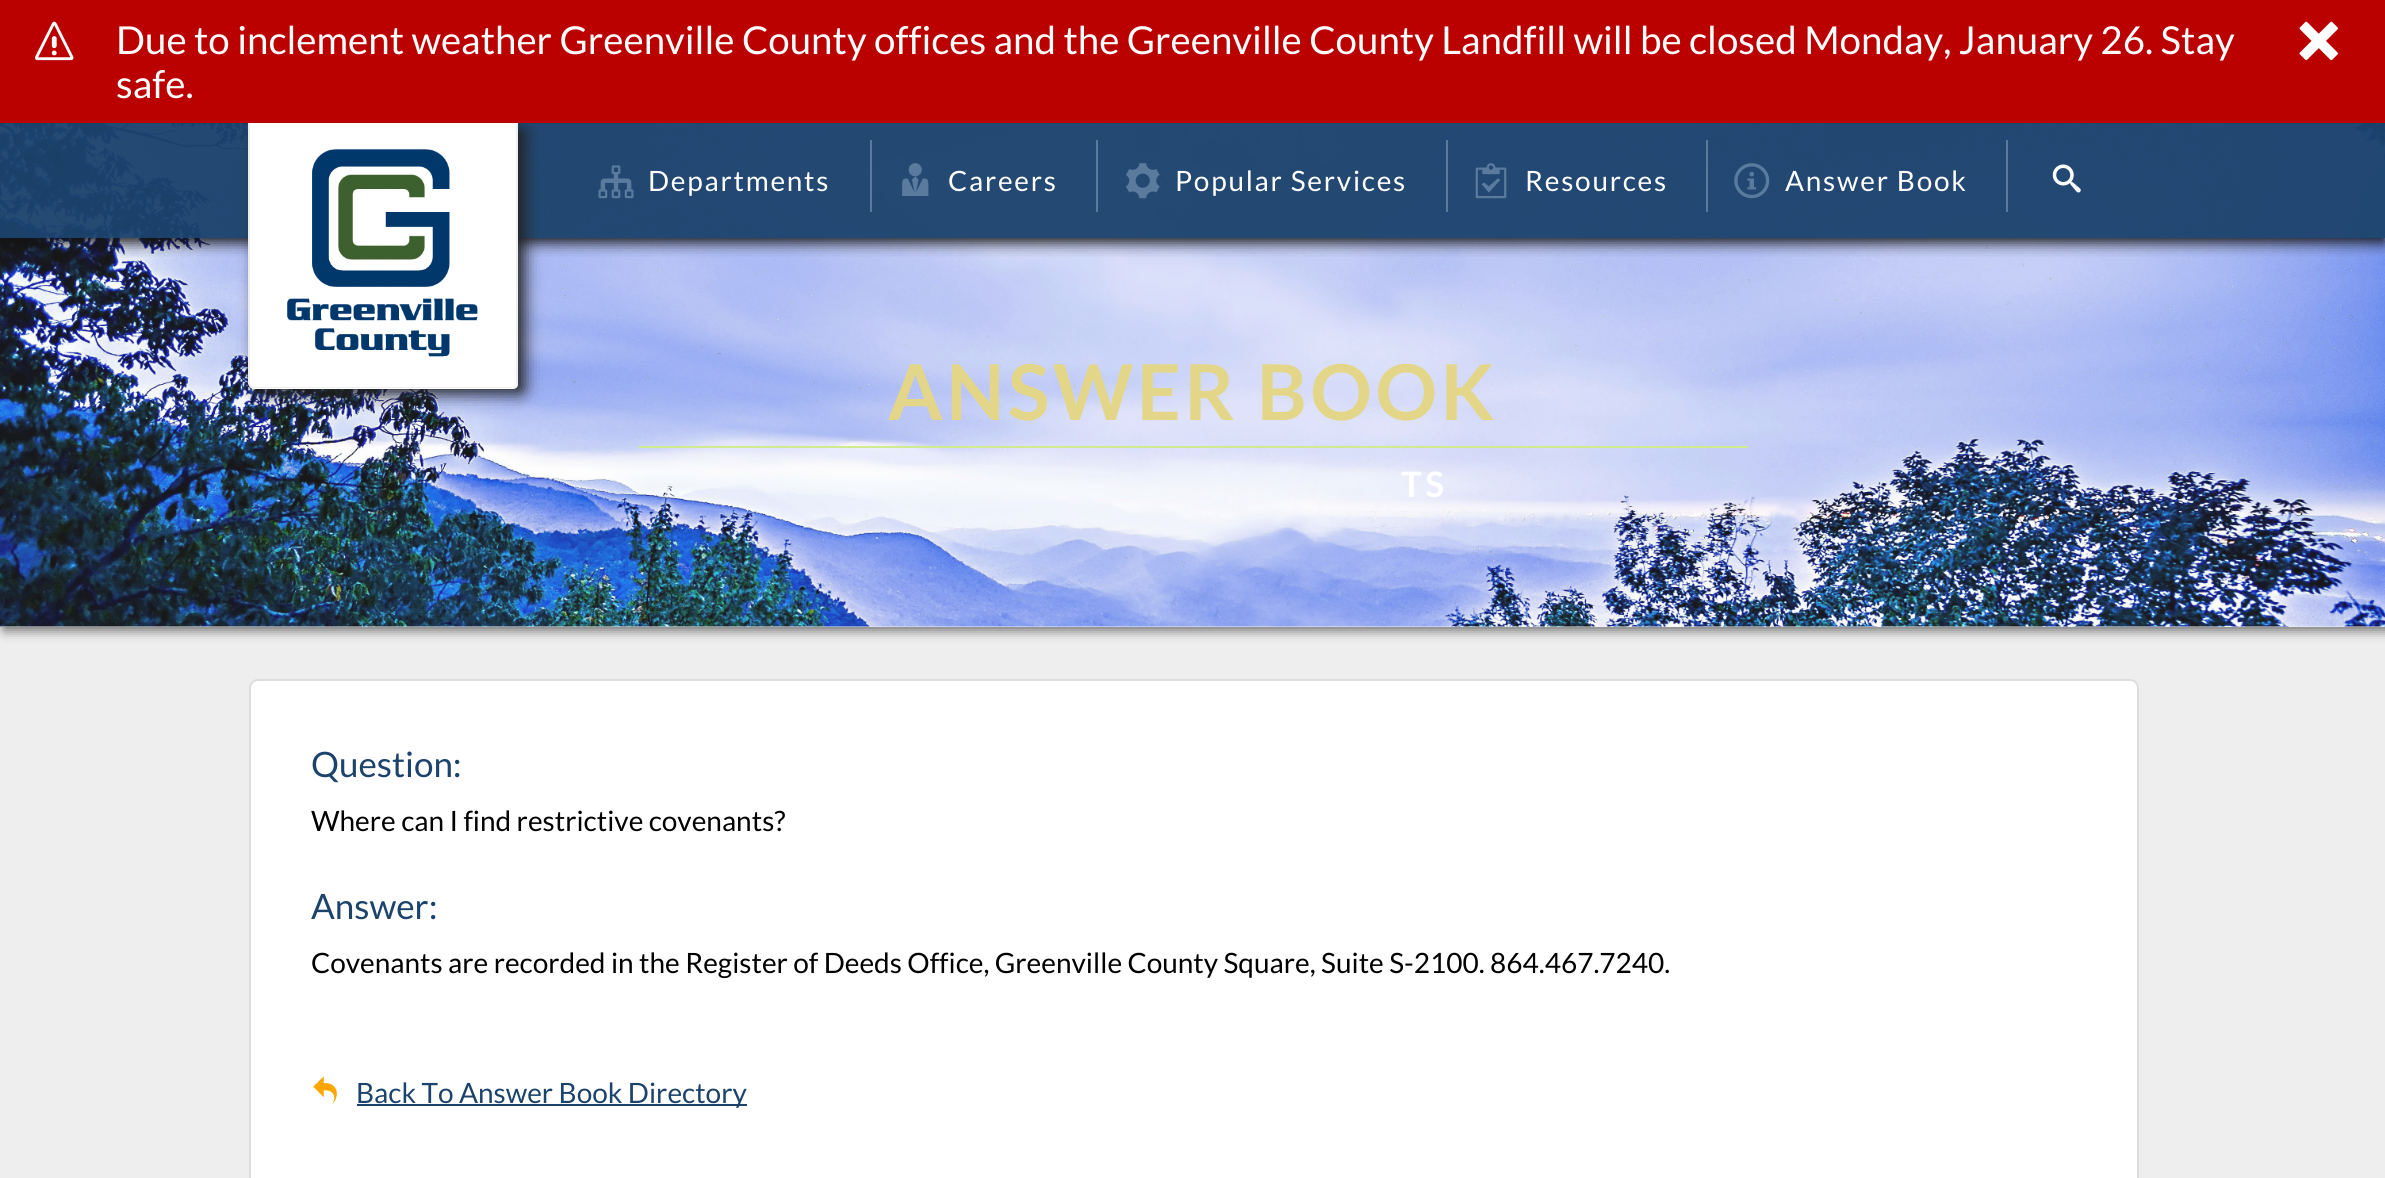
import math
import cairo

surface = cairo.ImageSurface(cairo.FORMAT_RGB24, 2385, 1178)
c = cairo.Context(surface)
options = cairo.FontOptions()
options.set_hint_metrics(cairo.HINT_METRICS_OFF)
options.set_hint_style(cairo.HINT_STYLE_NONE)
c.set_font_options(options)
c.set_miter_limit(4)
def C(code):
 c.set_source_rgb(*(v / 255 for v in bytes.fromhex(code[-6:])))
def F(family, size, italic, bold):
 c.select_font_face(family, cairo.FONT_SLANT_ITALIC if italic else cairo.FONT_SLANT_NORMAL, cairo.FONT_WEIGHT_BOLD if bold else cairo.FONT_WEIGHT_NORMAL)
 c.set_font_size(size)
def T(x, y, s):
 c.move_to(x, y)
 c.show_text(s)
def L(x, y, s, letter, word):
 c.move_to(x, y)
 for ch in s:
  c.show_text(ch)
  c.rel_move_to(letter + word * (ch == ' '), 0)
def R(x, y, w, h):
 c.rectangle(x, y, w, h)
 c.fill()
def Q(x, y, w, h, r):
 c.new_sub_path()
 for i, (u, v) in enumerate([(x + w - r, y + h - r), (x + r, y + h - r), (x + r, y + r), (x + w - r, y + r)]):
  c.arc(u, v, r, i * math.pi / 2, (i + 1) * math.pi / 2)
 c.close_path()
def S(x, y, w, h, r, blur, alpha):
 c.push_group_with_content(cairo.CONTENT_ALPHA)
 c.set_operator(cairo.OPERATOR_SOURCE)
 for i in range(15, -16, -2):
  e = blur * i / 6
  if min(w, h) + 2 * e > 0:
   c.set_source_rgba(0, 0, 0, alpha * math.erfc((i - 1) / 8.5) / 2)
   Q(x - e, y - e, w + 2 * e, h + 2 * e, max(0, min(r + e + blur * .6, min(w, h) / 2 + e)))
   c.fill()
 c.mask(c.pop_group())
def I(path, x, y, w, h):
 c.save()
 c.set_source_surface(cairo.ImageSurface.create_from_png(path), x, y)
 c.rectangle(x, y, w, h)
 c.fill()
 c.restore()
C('eeeeee')
c.paint()
c.save()
c.set_fill_rule(cairo.FILL_RULE_EVEN_ODD)
c.new_path()
c.move_to(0,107)
c.line_to(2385,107)
c.line_to(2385,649)
c.line_to(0,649)
c.close_path()
c.move_to(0,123)
c.line_to(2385,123)
c.line_to(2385,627)
c.line_to(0,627)
c.close_path()
c.clip()
C('646464')
S(4,126,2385,504,0,6,1)
c.restore()
I('10.png',0,123,2385,504)
c.save()
c.rectangle(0,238,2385,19)
c.clip()
C('111111')
S(0,128,2385,115,0,7,.95)
c.restore()
c.set_source_rgba(0.11,0.263,0.424,0.95)
R(0,123,2385,115)
C('222222')
S(256,128,269,266,5,8,1)
C('ffffff')
c.new_path()
c.move_to(249,123)
c.line_to(518,123)
c.line_to(518,384)
c.curve_to(518,387,516,389,513,389)
c.line_to(254,389)
c.curve_to(251,389,249,387,249,384)
c.close_path()
c.fill()
C('eeeeee')
c.set_fill_rule(cairo.FILL_RULE_EVEN_ODD)
c.new_path()
c.move_to(248,122)
c.line_to(518,122)
c.line_to(518,383)
c.curve_to(518,386,516,388,513,388)
c.line_to(254,388)
c.curve_to(251,388,248,386,248,383)
c.close_path()
c.move_to(250,122)
c.line_to(516,122)
c.line_to(516,383)
c.curve_to(516,385,515,387,513,387)
c.line_to(254,387)
c.curve_to(252,387,250,385,250,383)
c.close_path()
c.fill()
C('bb0000')
R(0,0,2385,123)
I('1.png',35,21,39,40)
F('Lato',38.5,0,0)
C('ffffff')
T(116,54,'Due to inclement weather Greenville County offices and the Greenville County Landfill will be closed Monday, January 26. Stay')
T(116,98,'safe.')
I('2.png',2299,21,39,40)
I('3.png',287,149,191,208)
C('5a7b9e')
R(870,140,2,72)
I('4.png',598,165,36,34)
F('Lato',28,0,0)
C('ffffff')
L(648,191,'Departments',1.75,0)
C('5a7b9e')
R(1096,140,2,72)
I('5.png',902,163,27,33)
C('ffffff')
L(948,191,'Careers',1.75,0)
C('5a7b9e')
R(1446,140,2,72)
I('6.png',1126,163,34,36)
C('ffffff')
L(1175,191,'Popular Services',1.75,0)
C('5a7b9e')
R(1706,140,2,72)
I('7.png',1475,163,32,36)
C('ffffff')
L(1525,191,'Resources',1.75,0)
C('5a7b9e')
R(2006,140,2,72)
I('8.png',1734,163,36,36)
C('ffffff')
L(1785,191,'Answer Book',1.75,0)
I('9.png',2052,164,29,29)
C('d0eb8f')
R(639,446,1109,2)
F('Lato',77,0,1)
C('e4d689')
L(888,420,'ANSWER BOOK',3.5,0)
F('Lato',35,0,1)
C('ffffff')
L(1401,497,'TS',3.5,0)
Q(250,680,1888,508,8)
c.fill_preserve()
C('dddddd')
c.stroke()
F('Lato',35,0,0)
C('1c436c')
T(311,777,'Question:')
F('Lato',28,0,0)
C('000000')
T(311,831,'Where can I find restrictive covenants?')
F('Lato',35,0,0)
C('1c436c')
T(311,919,'Answer:')
F('Lato',28,0,0)
C('000000')
T(311,973,'Covenants are recorded in the Register of Deeds Office, Greenville County Square, Suite S-2100. 864.467.7240.')
I('11.png',313,1076,24,28)
C('1c436c')
R(357,1104,390,2)
T(356,1103,'Back To Answer Book Directory')
surface.write_to_png('o.png')
